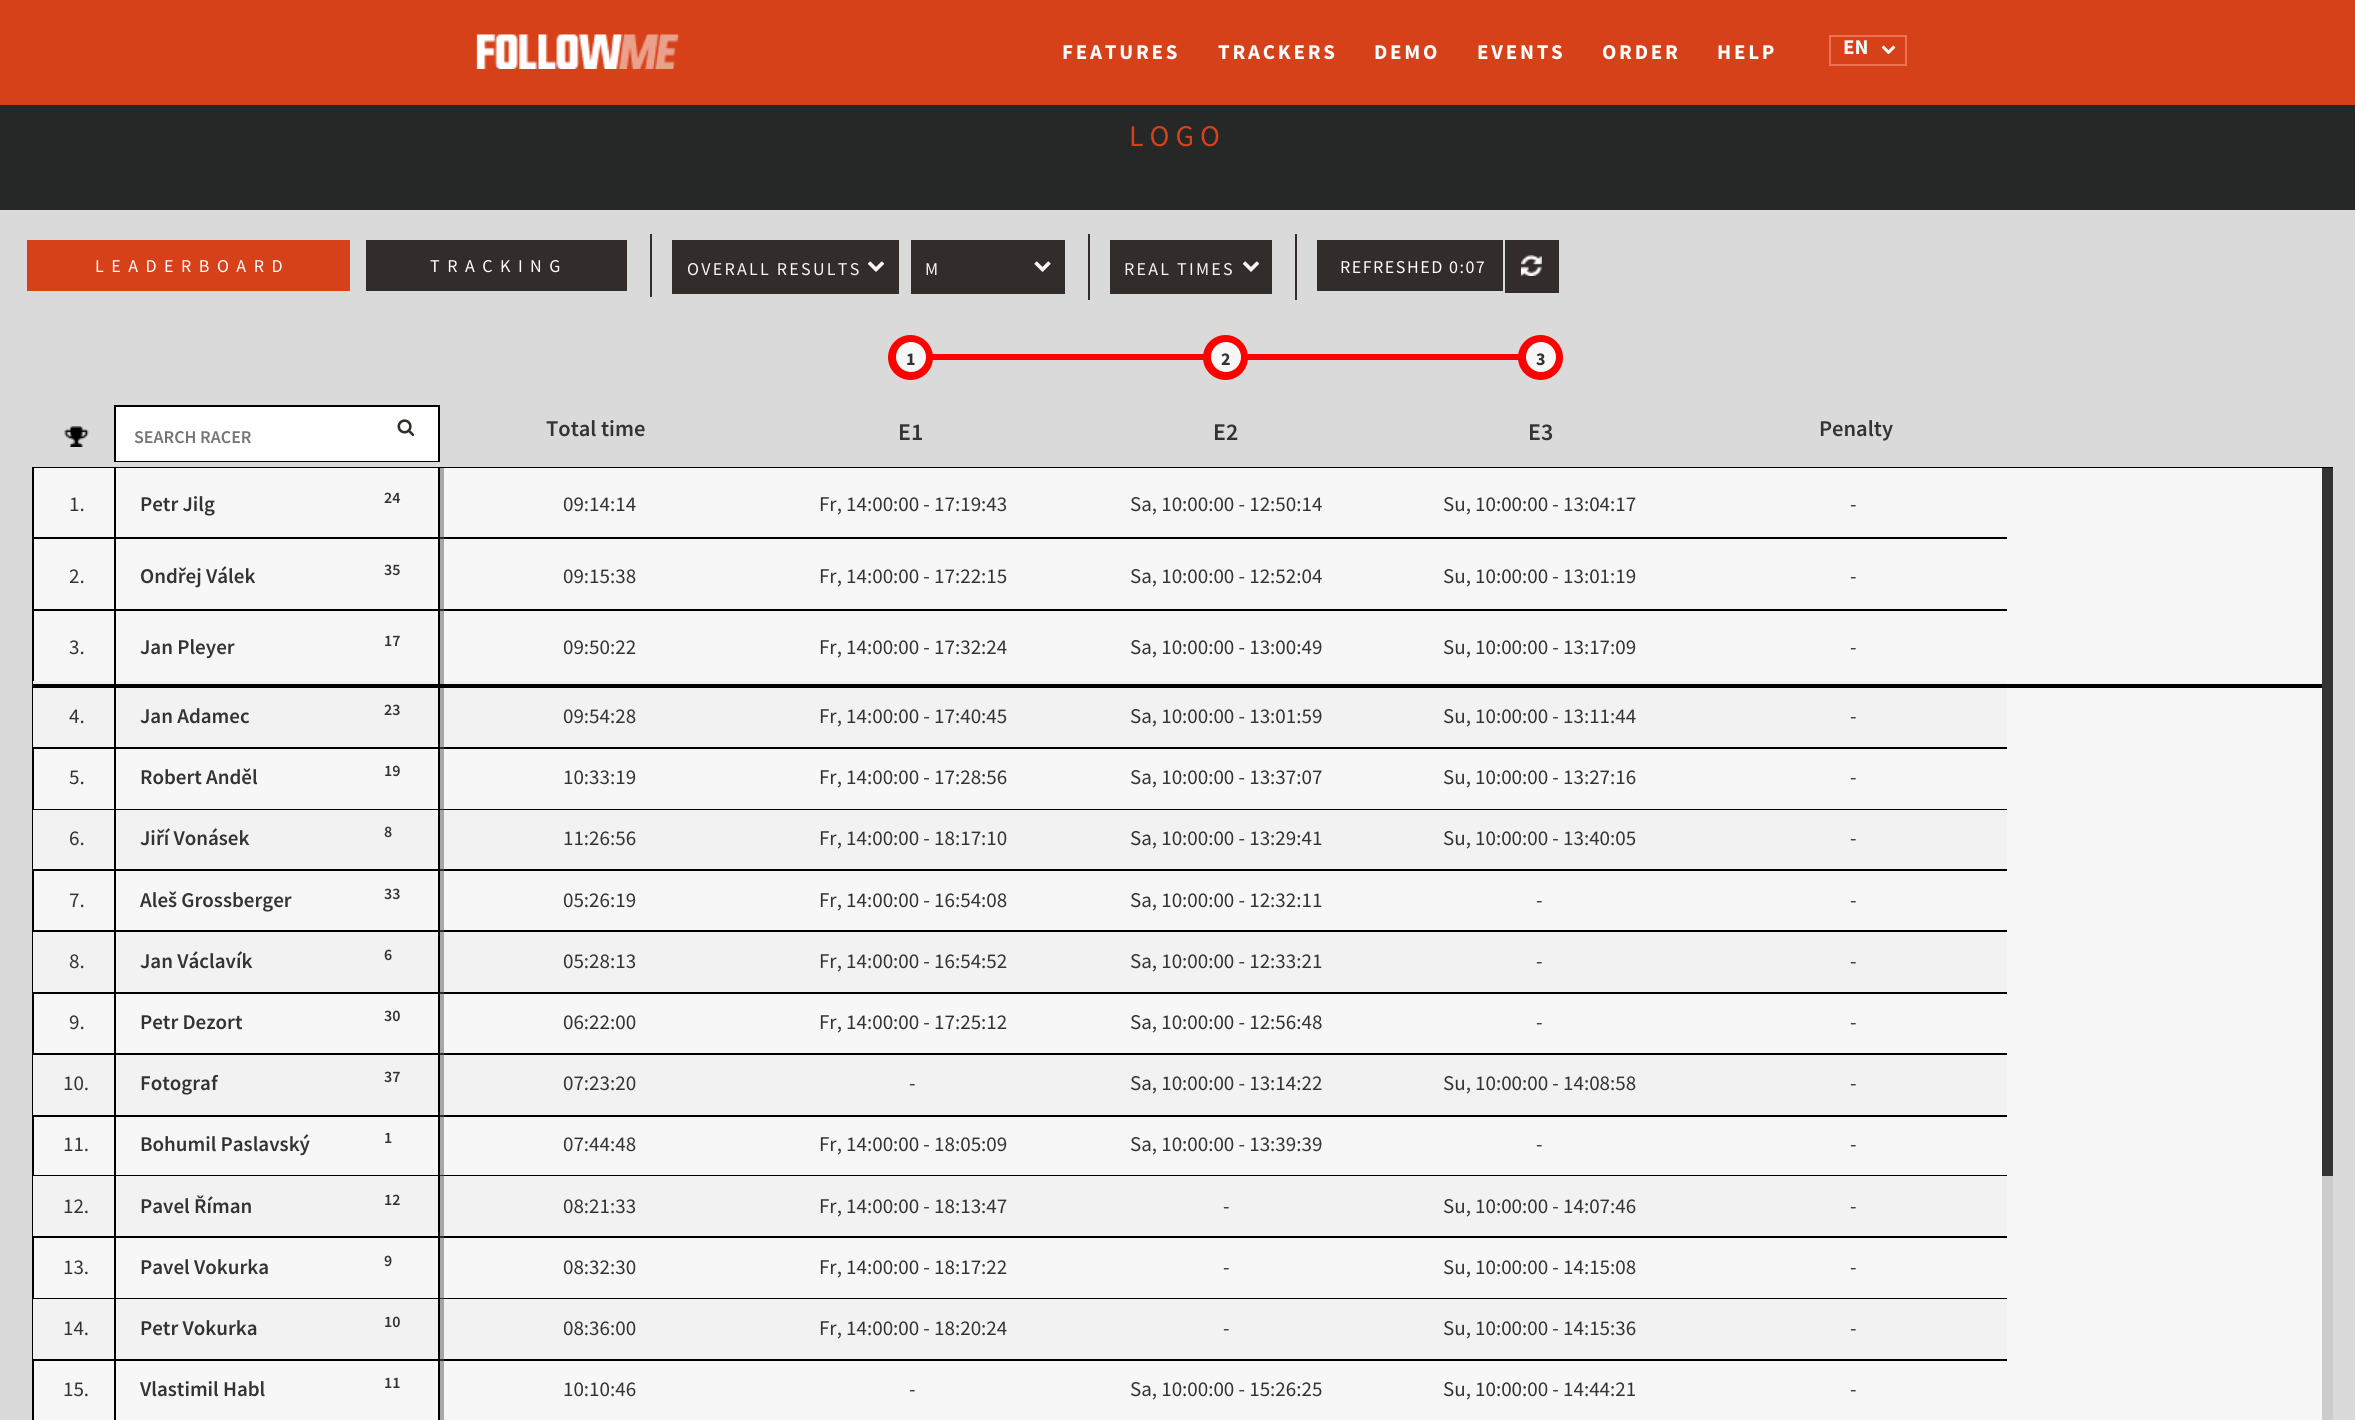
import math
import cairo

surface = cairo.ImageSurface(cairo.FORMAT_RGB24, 2355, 1420)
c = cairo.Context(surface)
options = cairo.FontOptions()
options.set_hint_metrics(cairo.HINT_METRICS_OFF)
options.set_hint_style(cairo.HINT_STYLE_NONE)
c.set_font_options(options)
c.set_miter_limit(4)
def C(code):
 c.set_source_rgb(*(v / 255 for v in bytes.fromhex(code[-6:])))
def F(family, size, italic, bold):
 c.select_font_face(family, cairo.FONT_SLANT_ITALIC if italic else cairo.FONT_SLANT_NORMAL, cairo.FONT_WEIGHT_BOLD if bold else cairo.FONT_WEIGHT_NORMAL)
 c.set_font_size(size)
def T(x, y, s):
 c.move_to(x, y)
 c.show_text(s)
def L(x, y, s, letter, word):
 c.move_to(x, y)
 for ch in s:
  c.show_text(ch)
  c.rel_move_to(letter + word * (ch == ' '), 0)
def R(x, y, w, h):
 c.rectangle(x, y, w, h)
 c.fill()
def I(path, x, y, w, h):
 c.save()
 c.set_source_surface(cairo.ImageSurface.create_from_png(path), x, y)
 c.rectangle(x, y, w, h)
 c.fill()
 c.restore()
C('262727')
c.paint()
C('d64119')
R(0,0,2355,105)
I('1.png',476,34,203,35)
F('Source Sans Pro',21,0,1)
C('ffffff')
L(1062,59,'FEATURES',2.75,0)
L(1218,59,'TRACKERS',2.75,0)
L(1374,59,'DEMO',2.75,0)
L(1477,59,'EVENTS',2.75,0)
L(1602,59,'ORDER',2.75,0)
L(1717,59,'HELP',2.75,0)
c.rectangle(1830,36,76,29)
C('ee7353')
c.stroke()
C('f7f7f7')
T(1843,54,'EN')
I('2.png',1881,45,15,10)
F('Source Sans Pro',30,0,0)
C('d64119')
L(1129,146,'LOGO',6,0)
C('dadada')
R(0,210,2355,1210)
C('322d2b')
R(650,234,2,63)
C('d64119')
R(27,240,323,51)
F('Source Sans Pro',18,0,0)
C('ffffff')
L(95,272,'LEADERBOARD',7.5,0)
C('322d2b')
R(366,240,261,51)
C('ffffff')
L(430,272,'TRACKING',7.5,0)
C('322d2b')
R(1088,234,2,66)
R(672,240,227,54)
C('f7f7f7')
L(687,275,'OVERALL RESULTS',2.25,0)
I('3.png',867,261,18,11)
C('322d2b')
R(911,240,154,54)
C('f7f7f7')
L(925,275,'M',2.25,0)
I('4.png',1034,261,17,11)
C('322d2b')
R(1295,234,2,66)
R(1110,240,162,54)
C('f7f7f7')
L(1124,275,'REAL TIMES',2.25,0)
I('3.png',1242,261,18,11)
C('322d2b')
R(1317,240,186,51)
C('ffffff')
L(1340,273,'REFRESHED',1.5,0)
L(1449,273,'0:07',1.5,0)
C('322d2b')
R(1505,240,54,53)
I('5.png',1521,255,21,21)
I('6.png',64,426,25,21)
c.rectangle(115,406,324,55)
C('000000')
c.stroke()
C('ffffff')
R(116,407,322,54)
I('7.png',397,419,18,17)
F('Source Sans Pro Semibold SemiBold',18,0,0)
C('757575')
T(134,443,'SEARCH RACER')
F('Source Sans Pro Semibold SemiBold',22.5,0,0)
C('333333')
T(546,436,'Total time')
C('ff0000')
c.new_path()
c.arc(910.5,357.5,22.5,0,2 * math.pi)
c.fill()
C('f7f7f7')
c.arc(911,357,15,0,2 * math.pi)
c.fill()
F('Source Sans Pro',18,0,1)
C('333333')
T(906,365,'1')
C('ff0000')
R(930,354,274,6)
F('Source Sans Pro Semibold SemiBold',24,0,0)
C('333333')
T(898,440,'E1')
C('ff0000')
c.new_path()
c.arc(1225.5,357.5,22.5,0,2 * math.pi)
c.fill()
C('f7f7f7')
c.arc(1226,357,15,0,2 * math.pi)
c.fill()
F('Source Sans Pro',18,0,1)
C('333333')
T(1221,365,'2')
C('ff0000')
R(1245,354,274,6)
F('Source Sans Pro Semibold SemiBold',24,0,0)
C('333333')
T(1213,440,'E2')
C('ff0000')
c.new_path()
c.arc(1540.5,357.5,22.5,0,2 * math.pi)
c.fill()
C('f7f7f7')
c.arc(1541,357,15,0,2 * math.pi)
c.fill()
F('Source Sans Pro',18,0,1)
C('333333')
T(1536,365,'3')
F('Source Sans Pro Semibold SemiBold',24,0,0)
T(1528,440,'E3')
F('Source Sans Pro Semibold SemiBold',22.5,0,0)
T(1819,436,'Penalty')
C('000000')
R(32,467,2301,1)
C('f7f7f7')
R(440,468,1882,952)
C('000000')
R(440,537,1567,2)
R(440,609,1567,2)
C('f2f2f2')
R(440,681,1567,66)
C('000000')
R(440,747,1567,2)
R(440,809,1567,1)
C('f2f2f2')
R(440,810,1567,59)
C('000000')
R(440,869,1567,2)
R(440,930,1567,2)
C('f2f2f2')
R(440,932,1567,60)
C('000000')
R(440,992,1567,2)
R(440,1053,1567,2)
C('f2f2f2')
R(440,1055,1567,60)
C('000000')
R(440,1115,1567,2)
R(440,1175,1567,1)
C('f2f2f2')
R(440,1176,1567,60)
C('000000')
R(440,1236,1567,2)
R(440,1298,1567,1)
C('f2f2f2')
R(440,1299,1567,60)
C('000000')
R(440,1359,1567,2)
c.set_source_rgba(0.353,0.353,0.353,0.5)
c.new_path()
c.move_to(36,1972)
c.line_to(36,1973)
c.line_to(444,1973)
c.line_to(444,468)
c.line_to(440,468)
c.line_to(440,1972)
c.close_path()
c.fill()
C('f7f7f7')
R(34,468,404,952)
C('000000')
R(438,468,2,952)
R(32,468,2,952)
R(114,468,2,402)
R(33,537,405,2)
F('Source Sans Pro',21,0,0)
C('333333')
T(69,511,'1.')
F('Source Sans Pro Semibold SemiBold',21,0,0)
T(140,511,'Petr Jilg')
F('Source Sans Pro Semibold SemiBold',16,0,0)
T(384,503,'24')
C('000000')
R(33,609,405,2)
F('Source Sans Pro',21,0,0)
C('333333')
T(69,583,'2.')
F('Source Sans Pro Semibold SemiBold',21,0,0)
T(140,583,'Ondřej Válek')
F('Source Sans Pro Semibold SemiBold',16,0,0)
T(384,575,'35')
F('Source Sans Pro',21,0,0)
T(69,654,'3.')
F('Source Sans Pro Semibold SemiBold',21,0,0)
T(140,654,'Jan Pleyer')
F('Source Sans Pro Semibold SemiBold',16,0,0)
T(384,646,'17')
C('f2f2f2')
R(33,681,81,66)
R(116,681,322,66)
C('000000')
R(33,684,2289,4)
R(33,747,405,2)
F('Source Sans Pro',21,0,0)
C('333333')
T(69,723,'4.')
F('Source Sans Pro Semibold SemiBold',21,0,0)
T(140,723,'Jan Adamec')
F('Source Sans Pro Semibold SemiBold',16,0,0)
T(384,715,'23')
C('000000')
R(33,809,405,1)
F('Source Sans Pro',21,0,0)
C('333333')
T(69,784,'5.')
F('Source Sans Pro Semibold SemiBold',21,0,0)
T(140,784,'Robert Anděl')
F('Source Sans Pro Semibold SemiBold',16,0,0)
T(384,776,'19')
C('f2f2f2')
R(33,810,81,59)
C('000000')
R(33,869,405,2)
F('Source Sans Pro',21,0,0)
C('333333')
T(69,845,'6.')
C('f2f2f2')
R(116,810,322,59)
F('Source Sans Pro Semibold SemiBold',21,0,0)
C('333333')
T(140,845,'Jiří Vonásek')
F('Source Sans Pro Semibold SemiBold',16,0,0)
T(384,837,'8')
C('000000')
R(114,870,2,123)
R(33,930,405,2)
F('Source Sans Pro',21,0,0)
C('333333')
T(69,907,'7.')
F('Source Sans Pro Semibold SemiBold',21,0,0)
T(140,907,'Aleš Grossberger')
F('Source Sans Pro Semibold SemiBold',16,0,0)
T(384,899,'33')
C('f2f2f2')
R(33,932,81,60)
C('000000')
R(33,992,405,2)
F('Source Sans Pro',21,0,0)
C('333333')
T(69,968,'8.')
C('f2f2f2')
R(116,932,322,60)
F('Source Sans Pro Semibold SemiBold',21,0,0)
C('333333')
T(140,968,'Jan Václavík')
F('Source Sans Pro Semibold SemiBold',16,0,0)
T(384,960,'6')
C('000000')
R(114,993,2,123)
R(33,1053,405,2)
F('Source Sans Pro',21,0,0)
C('333333')
T(69,1029,'9.')
F('Source Sans Pro Semibold SemiBold',21,0,0)
T(140,1029,'Petr Dezort')
F('Source Sans Pro Semibold SemiBold',16,0,0)
T(384,1021,'30')
C('f2f2f2')
R(33,1055,81,60)
C('000000')
R(33,1115,405,2)
F('Source Sans Pro',21,0,0)
C('333333')
T(63,1090,'10.')
C('f2f2f2')
R(116,1055,322,60)
F('Source Sans Pro Semibold SemiBold',21,0,0)
C('333333')
T(140,1090,'Fotograf')
F('Source Sans Pro Semibold SemiBold',16,0,0)
T(384,1082,'37')
C('000000')
R(114,1116,2,304)
R(33,1175,405,1)
F('Source Sans Pro',21,0,0)
C('333333')
T(63,1151,'11.')
F('Source Sans Pro Semibold SemiBold',21,0,0)
T(140,1151,'Bohumil Paslavský')
F('Source Sans Pro Semibold SemiBold',16,0,0)
T(384,1143,'1')
C('f2f2f2')
R(33,1176,81,60)
C('000000')
R(33,1236,405,2)
F('Source Sans Pro',21,0,0)
C('333333')
T(63,1213,'12.')
C('f2f2f2')
R(116,1176,322,60)
F('Source Sans Pro Semibold SemiBold',21,0,0)
C('333333')
T(140,1213,'Pavel Říman')
F('Source Sans Pro Semibold SemiBold',16,0,0)
T(384,1205,'12')
C('000000')
R(33,1298,405,1)
F('Source Sans Pro',21,0,0)
C('333333')
T(63,1274,'13.')
F('Source Sans Pro Semibold SemiBold',21,0,0)
T(140,1274,'Pavel Vokurka')
F('Source Sans Pro Semibold SemiBold',16,0,0)
T(384,1266,'9')
C('f2f2f2')
R(33,1299,81,60)
C('000000')
R(33,1359,405,2)
F('Source Sans Pro',21,0,0)
C('333333')
T(63,1335,'14.')
C('f2f2f2')
R(116,1299,322,60)
F('Source Sans Pro Semibold SemiBold',21,0,0)
C('333333')
T(140,1335,'Petr Vokurka')
F('Source Sans Pro Semibold SemiBold',16,0,0)
T(384,1327,'10')
F('Source Sans Pro',21,0,0)
T(63,1396,'15.')
F('Source Sans Pro Semibold SemiBold',21,0,0)
T(140,1396,'Vlastimil Habl')
F('Source Sans Pro Semibold SemiBold',16,0,0)
T(384,1388,'11')
F('Source Sans Pro',21,0,0)
T(563,511,'09:14:14')
T(819,511,'Fr, 14:00:00 - 17:19:43')
T(1130,511,'Sa, 10:00:00 - 12:50:14')
T(1443,511,'Su, 10:00:00 - 13:04:17')
T(1850,511,'-')
T(563,583,'09:15:38')
T(819,583,'Fr, 14:00:00 - 17:22:15')
T(1130,583,'Sa, 10:00:00 - 12:52:04')
T(1443,583,'Su, 10:00:00 - 13:01:19')
T(1850,583,'-')
T(563,654,'09:50:22')
T(819,654,'Fr, 14:00:00 - 17:32:24')
T(1130,654,'Sa, 10:00:00 - 13:00:49')
T(1443,654,'Su, 10:00:00 - 13:17:09')
T(1850,654,'-')
T(563,723,'09:54:28')
T(819,723,'Fr, 14:00:00 - 17:40:45')
T(1130,723,'Sa, 10:00:00 - 13:01:59')
T(1443,723,'Su, 10:00:00 - 13:11:44')
T(1850,723,'-')
T(563,784,'10:33:19')
T(819,784,'Fr, 14:00:00 - 17:28:56')
T(1130,784,'Sa, 10:00:00 - 13:37:07')
T(1443,784,'Su, 10:00:00 - 13:27:16')
T(1850,784,'-')
T(563,845,'11:26:56')
T(819,845,'Fr, 14:00:00 - 18:17:10')
T(1130,845,'Sa, 10:00:00 - 13:29:41')
T(1443,845,'Su, 10:00:00 - 13:40:05')
T(1850,845,'-')
T(563,907,'05:26:19')
T(819,907,'Fr, 14:00:00 - 16:54:08')
T(1130,907,'Sa, 10:00:00 - 12:32:11')
T(1536,907,'-')
T(1850,907,'-')
T(563,968,'05:28:13')
T(819,968,'Fr, 14:00:00 - 16:54:52')
T(1130,968,'Sa, 10:00:00 - 12:33:21')
T(1536,968,'-')
T(1850,968,'-')
T(563,1029,'06:22:00')
T(819,1029,'Fr, 14:00:00 - 17:25:12')
T(1130,1029,'Sa, 10:00:00 - 12:56:48')
T(1536,1029,'-')
T(1850,1029,'-')
T(563,1090,'07:23:20')
T(909,1090,'-')
T(1130,1090,'Sa, 10:00:00 - 13:14:22')
T(1443,1090,'Su, 10:00:00 - 14:08:58')
T(1850,1090,'-')
T(563,1151,'07:44:48')
T(819,1151,'Fr, 14:00:00 - 18:05:09')
T(1130,1151,'Sa, 10:00:00 - 13:39:39')
T(1536,1151,'-')
T(1850,1151,'-')
T(563,1213,'08:21:33')
T(819,1213,'Fr, 14:00:00 - 18:13:47')
T(1223,1213,'-')
T(1443,1213,'Su, 10:00:00 - 14:07:46')
T(1850,1213,'-')
T(563,1274,'08:32:30')
T(819,1274,'Fr, 14:00:00 - 18:17:22')
T(1223,1274,'-')
T(1443,1274,'Su, 10:00:00 - 14:15:08')
T(1850,1274,'-')
T(563,1335,'08:36:00')
T(819,1335,'Fr, 14:00:00 - 18:20:24')
T(1223,1335,'-')
T(1443,1335,'Su, 10:00:00 - 14:15:36')
T(1850,1335,'-')
T(563,1396,'10:10:46')
T(909,1396,'-')
T(1130,1396,'Sa, 10:00:00 - 15:26:25')
T(1443,1396,'Su, 10:00:00 - 14:44:21')
T(1850,1396,'-')
C('cccccc')
R(2322,1176,11,244)
C('333333')
R(2322,468,11,708)
surface.write_to_png('o.png')
